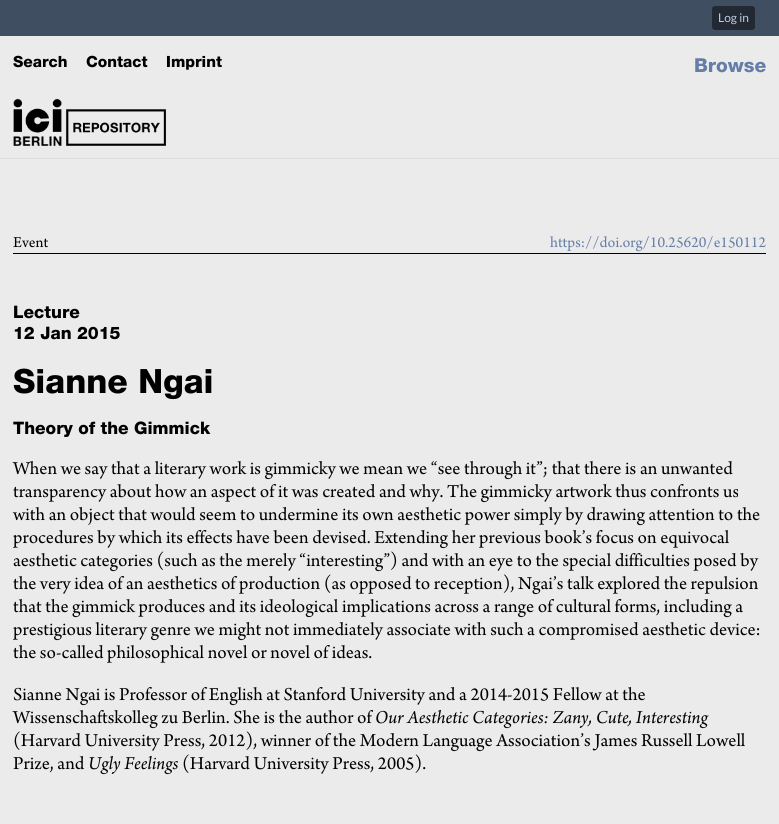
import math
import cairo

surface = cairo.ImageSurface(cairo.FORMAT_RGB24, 779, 824)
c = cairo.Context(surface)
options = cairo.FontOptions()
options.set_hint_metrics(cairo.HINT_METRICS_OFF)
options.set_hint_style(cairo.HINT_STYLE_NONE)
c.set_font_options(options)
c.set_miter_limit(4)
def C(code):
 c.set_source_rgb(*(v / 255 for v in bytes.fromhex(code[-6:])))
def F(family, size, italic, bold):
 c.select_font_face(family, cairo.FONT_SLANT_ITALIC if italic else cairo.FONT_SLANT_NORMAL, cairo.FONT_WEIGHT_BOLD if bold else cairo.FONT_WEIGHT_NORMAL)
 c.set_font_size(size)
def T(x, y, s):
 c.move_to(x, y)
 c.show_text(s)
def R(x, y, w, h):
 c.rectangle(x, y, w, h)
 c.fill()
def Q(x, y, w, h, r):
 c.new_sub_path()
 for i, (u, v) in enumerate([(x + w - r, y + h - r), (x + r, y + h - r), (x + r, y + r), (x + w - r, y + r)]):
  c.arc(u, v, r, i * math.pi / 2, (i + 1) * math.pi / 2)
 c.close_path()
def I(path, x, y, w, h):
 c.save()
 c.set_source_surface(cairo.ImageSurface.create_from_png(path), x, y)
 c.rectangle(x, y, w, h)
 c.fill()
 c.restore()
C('ebebeb')
c.paint()
C('404e61')
R(0,0,779,36)
C('222933')
Q(712,6,43,24,3)
c.fill()
F('Lato',12,0,0)
C('bdcde3')
T(718,22,'Log in')
C('dedede')
R(0,158,779,1)
F('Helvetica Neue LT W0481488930 Black',15.5,0,0)
C('000000')
T(13,67,'Search')
T(86,67,'Contact')
T(166,67,'Imprint')
F('Helvetica Neue LT W0481488930 Black',19.2,0,0)
C('657ea8')
T(694,72,'Browse')
I('1.png',13,98,154,48)
C('000000')
R(13,253,753,1)
F('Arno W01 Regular',16,0,0)
T(13,247,'Event')
C('657ea8')
T(550,247,'https://doi.org/10.25620/e150112')
F('Helvetica Neue LT W0481488930 Black',17.25,0,0)
C('000000')
T(13,318,'Lecture')
T(13,339,'12 Jan 2015')
F('Helvetica Neue LT W0481488930 Black',33.5,0,0)
T(13,393,'Sianne Ngai')
F('Helvetica Neue LT W0481488930 Black',17.25,0,0)
T(13,434,'Theory of the Gimmick')
F('Arno W01 Regular',19.2,0,0)
T(13,474,'When we say that a literary work is gimmicky we mean we “see through it”; that there is an unwanted')
T(13,497,'transparency about how an aspect of it was created and why. The gimmicky artwork thus confronts us')
T(13,520,'with an object that would seem to undermine its own aesthetic power simply by drawing attention to the')
T(13,543,'procedures by which its effects have been devised. Extending her previous book’s focus on equivocal')
T(13,566,'aesthetic categories (such as the merely “interesting”) and with an eye to the special difficulties posed by')
T(13,589,'the very idea of an aesthetics of production (as opposed to reception), Ngai’s talk explored the repulsion')
T(13,612,'that the gimmick produces and its ideological implications across a range of cultural forms, including a')
T(13,635,'prestigious literary genre we might not immediately associate with such a compromised aesthetic device:')
T(13,658,'the so-called philosophical novel or novel of ideas.')
T(13,700,'Sianne Ngai is Professor of English at Stanford University and a 2014-2015 Fellow at the')
T(13,723,'Wissenschaftskolleg zu Berlin. She is the author of')
F('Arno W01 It',19.2,0,0)
T(375,723,'Our Aesthetic Categories: Zany, Cute, Interesting')
F('Arno W01 Regular',19.2,0,0)
T(13,746,'(Harvard University Press, 2012), winner of the Modern Language Association’s James Russell Lowell')
T(13,769,'Prize, and')
F('Arno W01 It',19.2,0,0)
T(88,769,'Ugly Feelings')
F('Arno W01 Regular',19.2,0,0)
T(182,769,'(Harvard University Press, 2005).')
surface.write_to_png('o.png')
